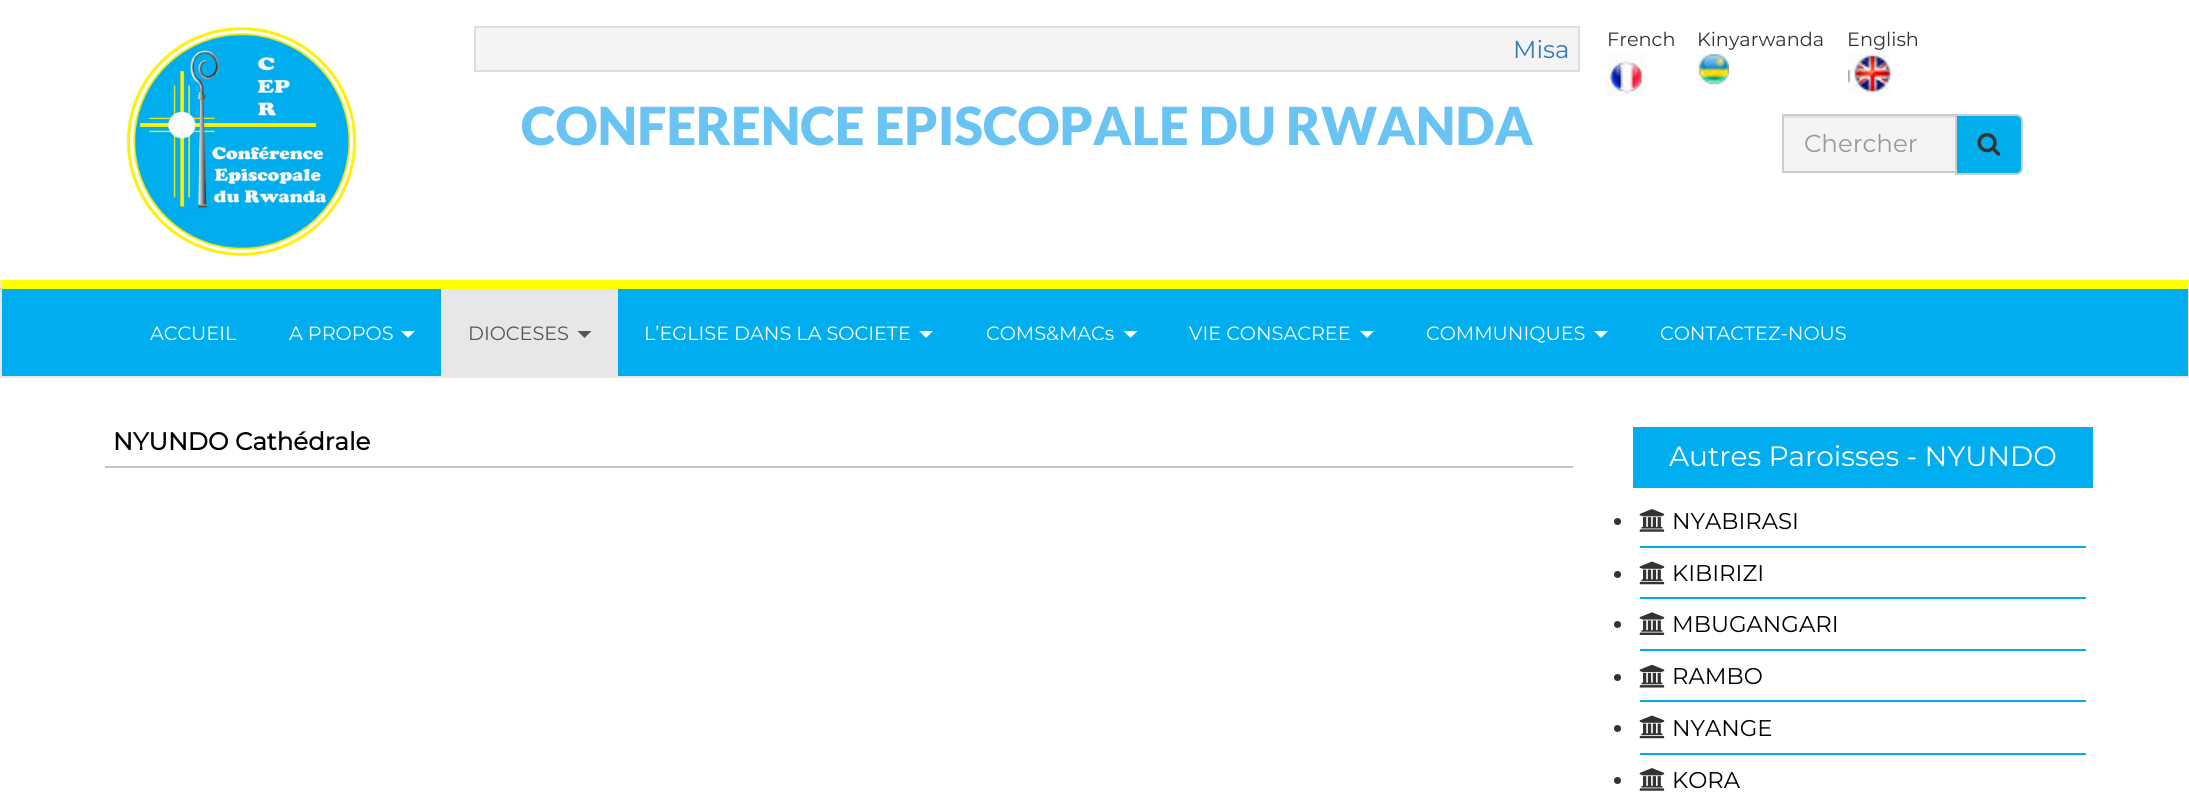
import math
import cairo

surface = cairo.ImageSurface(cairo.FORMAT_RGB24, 2189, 794)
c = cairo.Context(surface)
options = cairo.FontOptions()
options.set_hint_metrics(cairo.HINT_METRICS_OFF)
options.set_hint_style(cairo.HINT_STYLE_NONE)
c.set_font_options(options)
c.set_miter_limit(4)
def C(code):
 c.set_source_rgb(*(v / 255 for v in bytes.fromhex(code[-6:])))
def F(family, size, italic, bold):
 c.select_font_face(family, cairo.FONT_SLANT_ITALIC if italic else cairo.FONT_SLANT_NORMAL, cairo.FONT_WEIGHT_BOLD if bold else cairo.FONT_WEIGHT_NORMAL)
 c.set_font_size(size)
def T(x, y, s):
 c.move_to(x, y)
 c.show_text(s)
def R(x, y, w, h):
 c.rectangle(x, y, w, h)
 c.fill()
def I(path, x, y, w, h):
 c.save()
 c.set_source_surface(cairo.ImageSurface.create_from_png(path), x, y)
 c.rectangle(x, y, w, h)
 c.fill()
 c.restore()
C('ffffff')
c.paint()
I('1.png',126,27,231,229)
C('f4f4f4')
c.rectangle(475,27,1104,44)
c.fill_preserve()
C('dddddd')
c.stroke()
F('Montserrat Thin',24.5,0,0)
C('337ab7')
T(1513,58,'Misa')
F('Lato Black',52.5,0,0)
C('69c4f3')
T(521,145,'CONFERENCE EPISCOPALE DU RWANDA')
F('Montserrat Thin',19.25,0,0)
C('333333')
T(1607,46,'French')
I('2.png',1606,54,41,42)
T(1697,46,'Kinyarwanda')
I('3.png',1697,54,32,32)
T(1847,46,'English')
I('4.png',1848,54,43,39)
C('f4f4f4')
R(1784,118,171,53)
C('e2e2e2')
R(1783,116,172,2)
c.rectangle(1783,115,173,57)
C('cccccc')
c.stroke()
F('Montserrat Thin',24.5,0,0)
C('999999')
T(1804,152,'Chercher')
C('00aeeb')
c.new_path()
c.move_to(1956,115)
c.line_to(2016,115)
c.curve_to(2019.5,115,2022,117.5,2022,121)
c.line_to(2022,168)
c.curve_to(2022,171.5,2019.5,174,2016,174)
c.line_to(1956,174)
c.close_path()
c.fill_preserve()
C('cccccc')
c.stroke()
I('5.png',1977,133,24,23)
C('00adef')
R(2,289,2186,87)
C('ffff01')
c.new_path()
c.move_to(0,280)
c.line_to(2189,280)
c.line_to(2188,289)
c.line_to(2,289)
c.close_path()
c.fill()
C('e7e7e7')
c.new_path()
c.move_to(2189,280)
c.line_to(2189,378)
c.line_to(2188,376)
c.line_to(2188,289)
c.close_path()
c.fill()
R(0,376,2189,2)
c.new_path()
c.move_to(0,378)
c.line_to(0,280)
c.line_to(2,289)
c.line_to(2,376)
c.close_path()
c.fill()
F('Montserrat Thin',19.25,0,0)
C('f9fdff')
T(150,340,'ACCUEIL')
T(289,340,'A PROPOS')
c.new_path()
c.move_to(401,331)
c.line_to(415,331)
c.line_to(408,338)
c.close_path()
c.fill()
C('e7e7e7')
R(441,289,177,87)
C('555555')
T(468,340,'DIOCESES')
c.new_path()
c.move_to(577.5,331)
c.line_to(591.5,331)
c.line_to(584.5,338)
c.close_path()
c.fill()
C('f9fdff')
T(644,340,'L’EGLISE DANS LA SOCIETE')
c.new_path()
c.move_to(919,331)
c.line_to(933,331)
c.line_to(926,338)
c.close_path()
c.fill()
T(986,340,'COMS&MACs')
c.new_path()
c.move_to(1123.5,331)
c.line_to(1137.5,331)
c.line_to(1130.5,338)
c.close_path()
c.fill()
T(1189,340,'VIE CONSACREE')
c.new_path()
c.move_to(1360,331)
c.line_to(1374,331)
c.line_to(1367,338)
c.close_path()
c.fill()
T(1426,340,'COMMUNIQUES')
c.new_path()
c.move_to(1594,331)
c.line_to(1608,331)
c.line_to(1601,338)
c.close_path()
c.fill()
T(1660,340,'CONTACTEZ-NOUS')
C('c4c4c4')
R(105,466,1468,2)
F('Montserrat',24.5,0,1)
C('000000')
T(113,450,'NYUNDO Cathédrale')
C('00adef')
R(1633,427,460,61)
F('Montserrat Thin',28,0,0)
C('ffffff')
T(1669,466,'Autres Paroisses - NYUNDO')
C('00adef')
R(1640,546,446,2)
C('333333')
c.new_path()
c.arc(1617.5,521.5,3.5,0,2 * math.pi)
c.fill()
I('6.png',1639,509,26,23)
F('Montserrat Thin',22.75,0,0)
C('000000')
T(1672,529,'NYABIRASI')
C('00adef')
R(1640,597,446,2)
C('333333')
c.new_path()
c.arc(1617.5,574.5,3.5,0,2 * math.pi)
c.fill()
I('7.png',1639,561,26,24)
C('000000')
T(1672,581,'KIBIRIZI')
C('00adef')
R(1640,649,446,2)
C('333333')
c.new_path()
c.arc(1617.5,624.5,3.5,0,2 * math.pi)
c.fill()
I('8.png',1639,612,26,23)
C('000000')
T(1672,632,'MBUGANGARI')
C('00adef')
R(1640,700,446,2)
C('333333')
c.new_path()
c.arc(1617.5,677.5,3.5,0,2 * math.pi)
c.fill()
I('9.png',1639,664,26,24)
C('000000')
T(1672,684,'RAMBO')
C('00adef')
R(1640,753,446,2)
C('333333')
c.new_path()
c.arc(1617.5,728.5,3.5,0,2 * math.pi)
c.fill()
I('7.png',1639,715,26,24)
C('000000')
T(1672,736,'NYANGE')
C('333333')
c.new_path()
c.arc(1617.5,780.5,3.5,0,2 * math.pi)
c.fill()
I('6.png',1639,768,26,23)
C('000000')
T(1672,788,'KORA')
surface.write_to_png('o.png')
